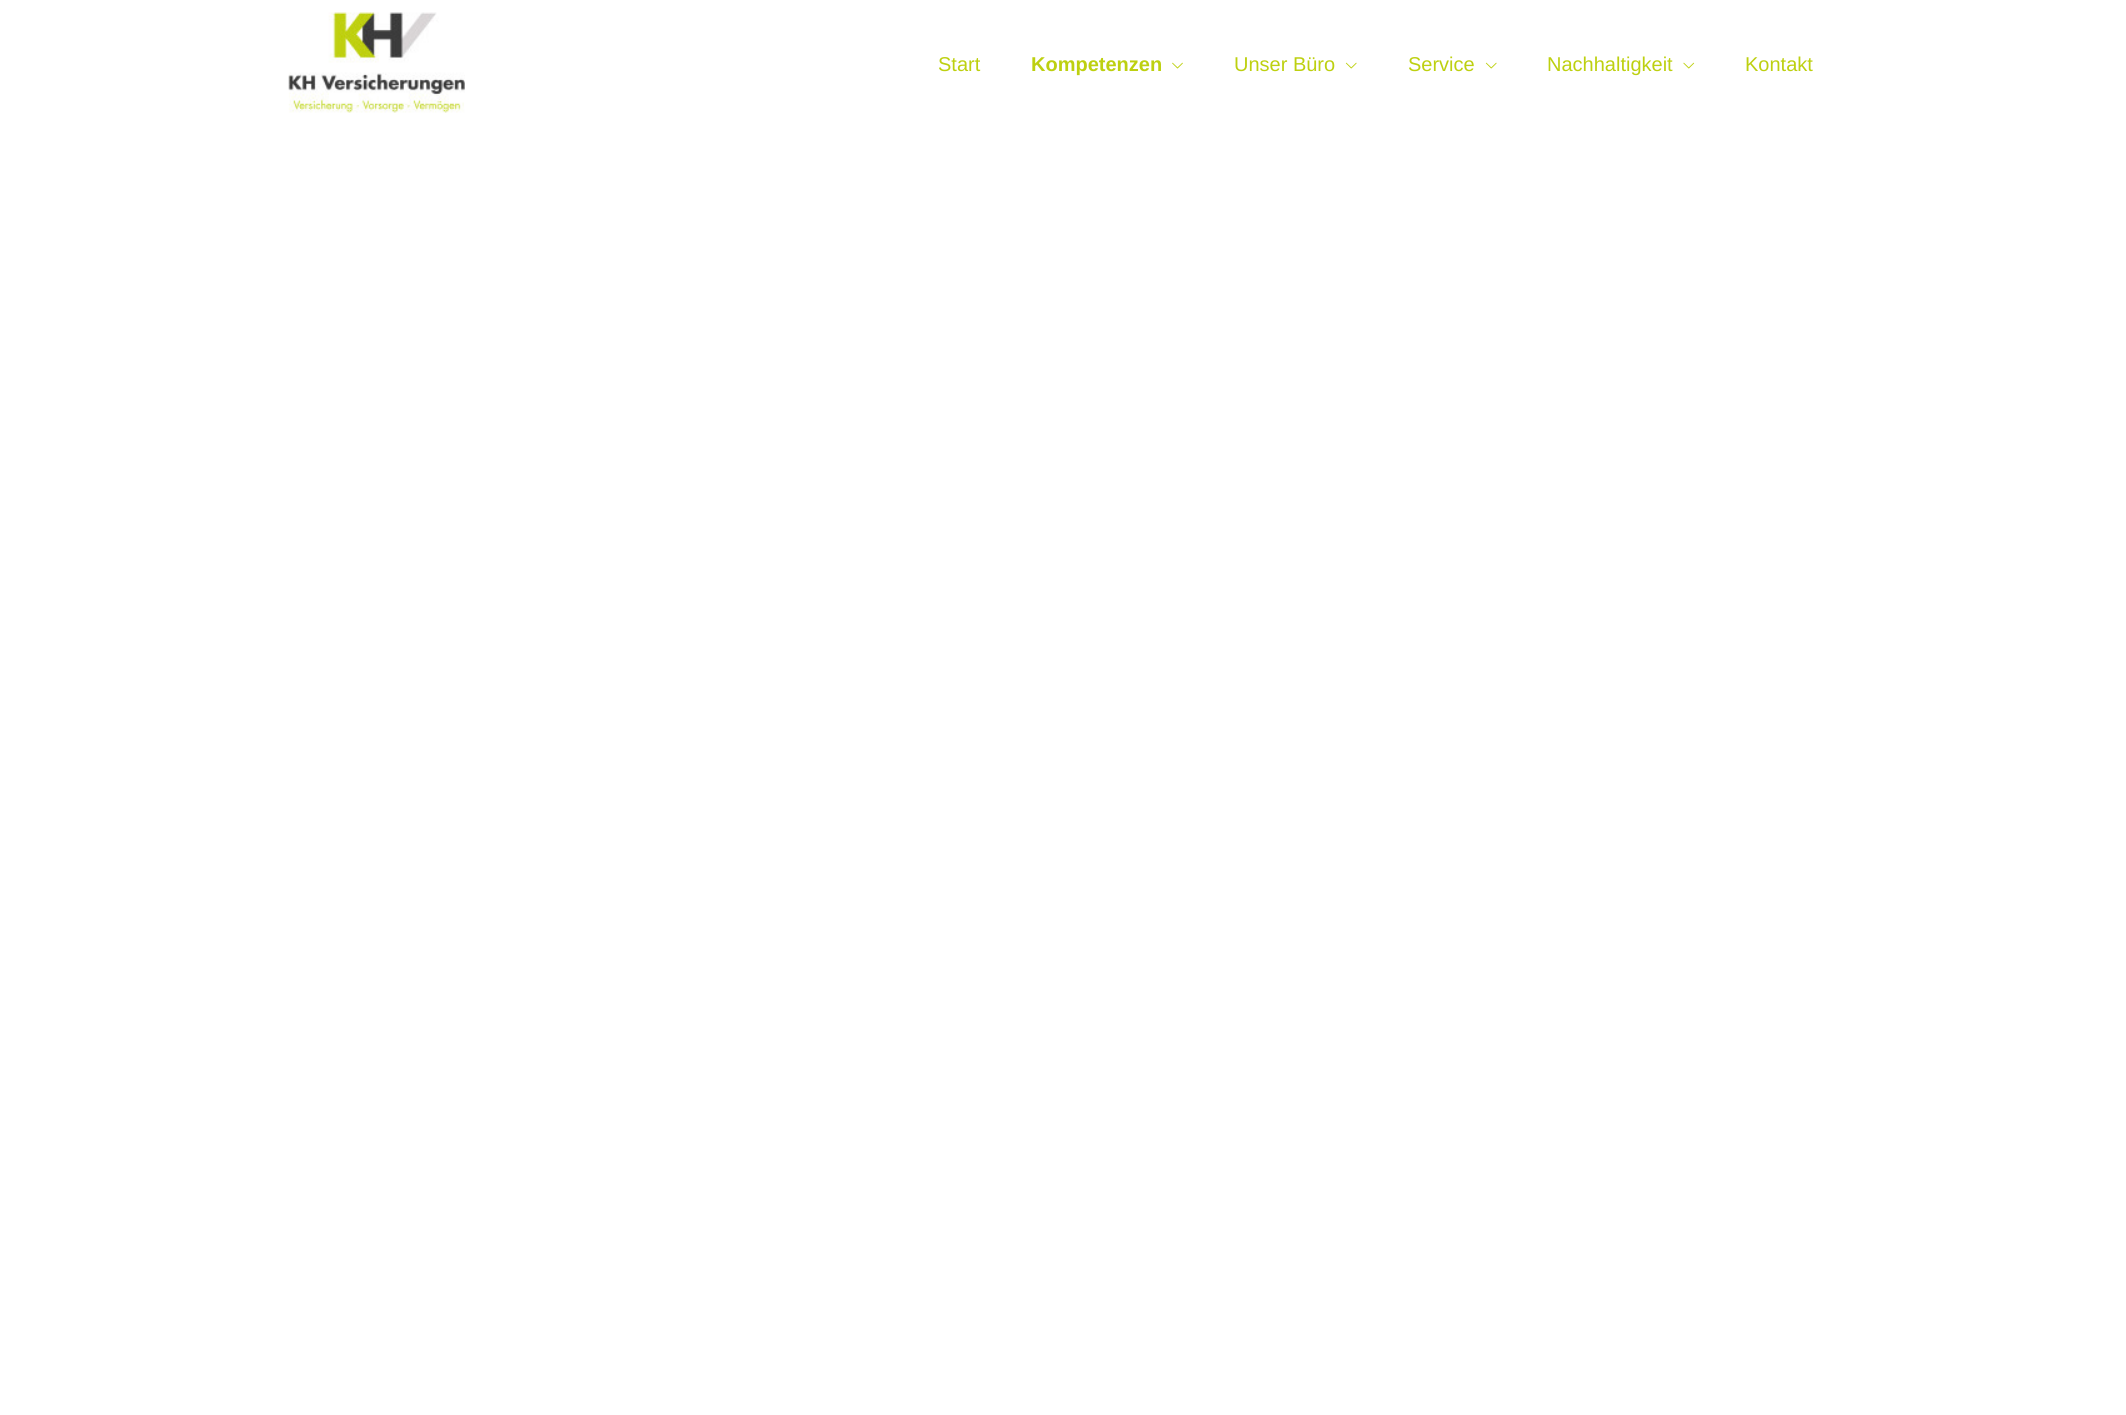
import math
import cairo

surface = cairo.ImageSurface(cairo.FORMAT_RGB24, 2126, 1415)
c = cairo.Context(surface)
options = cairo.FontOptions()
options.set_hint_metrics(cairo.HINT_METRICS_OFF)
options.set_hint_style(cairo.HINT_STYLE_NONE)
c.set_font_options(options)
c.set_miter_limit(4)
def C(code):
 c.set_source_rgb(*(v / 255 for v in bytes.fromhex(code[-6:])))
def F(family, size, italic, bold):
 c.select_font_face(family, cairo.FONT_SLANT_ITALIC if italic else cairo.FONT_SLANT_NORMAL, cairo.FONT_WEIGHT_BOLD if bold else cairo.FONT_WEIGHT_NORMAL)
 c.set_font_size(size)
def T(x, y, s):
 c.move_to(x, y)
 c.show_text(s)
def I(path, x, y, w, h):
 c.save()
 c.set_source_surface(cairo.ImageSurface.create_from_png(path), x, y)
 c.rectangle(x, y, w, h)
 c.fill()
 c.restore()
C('ffffff')
c.paint()
I('1.png',288,12,177,101)
F('Liberation Sans',20,0,0)
C('bdd010')
T(938,71,'Start')
F('Liberation Sans',20,0,1)
T(1031,71,'Kompetenzen')
I('2.png',1172,62,11,7)
F('Liberation Sans',20,0,0)
T(1234,71,'Unser Büro')
I('3.png',1345,62,12,7)
T(1408,71,'Service')
I('3.png',1485,62,12,7)
T(1547,71,'Nachhaltigkeit')
I('4.png',1683,62,12,7)
T(1745,71,'Kontakt')
surface.write_to_png('o.png')
